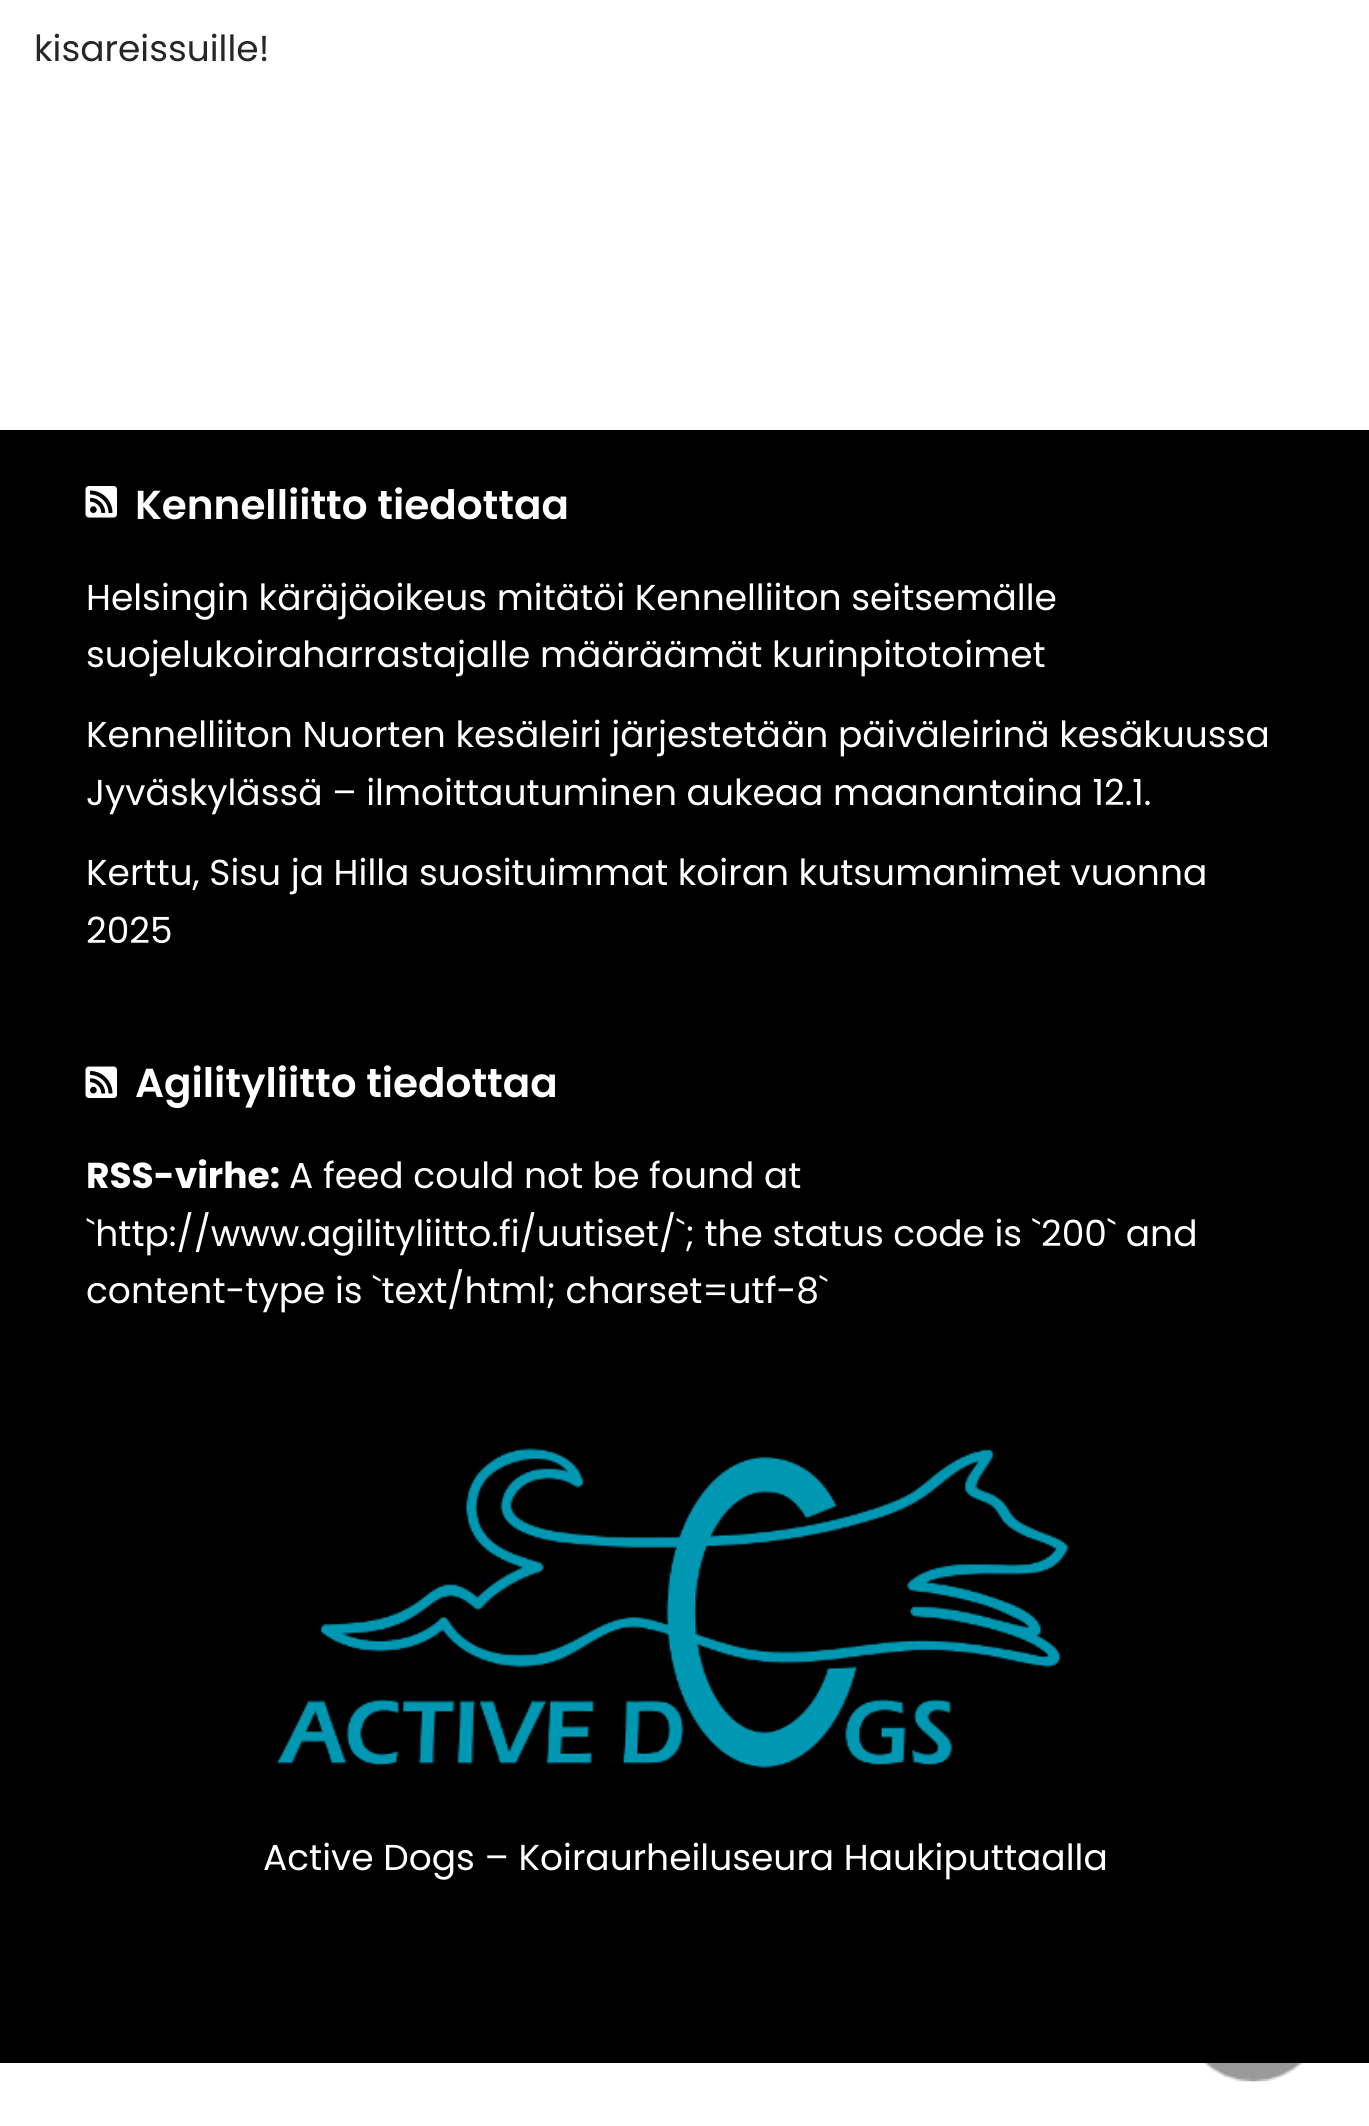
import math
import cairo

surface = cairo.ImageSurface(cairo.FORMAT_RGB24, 1369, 2126)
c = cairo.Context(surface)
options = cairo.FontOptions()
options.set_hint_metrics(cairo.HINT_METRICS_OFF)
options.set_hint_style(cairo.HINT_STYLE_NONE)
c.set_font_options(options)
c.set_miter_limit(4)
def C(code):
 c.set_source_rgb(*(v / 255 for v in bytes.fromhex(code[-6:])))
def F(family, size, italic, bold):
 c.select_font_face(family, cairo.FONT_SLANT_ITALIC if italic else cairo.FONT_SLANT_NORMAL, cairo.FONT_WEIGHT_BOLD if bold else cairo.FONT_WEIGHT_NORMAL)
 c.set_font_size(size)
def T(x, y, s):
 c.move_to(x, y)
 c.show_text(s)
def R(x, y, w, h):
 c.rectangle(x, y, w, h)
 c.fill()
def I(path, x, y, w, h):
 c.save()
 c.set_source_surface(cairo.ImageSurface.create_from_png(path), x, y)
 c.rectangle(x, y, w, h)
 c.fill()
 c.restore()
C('ffffff')
c.paint()
F('Poppins',36,0,0)
C('272626')
T(34,61,'kisareissuille!')
C('000000')
R(0,430,1369,1633)
I('1.png',85,486,32,32)
F('Poppins SemiBold',40.5,0,0)
C('ffffff')
T(135,519,'Kennelliitto tiedottaa')
F('Poppins',36,0,0)
T(86,610,'Helsingin käräjäoikeus mitätöi Kennelliiton seitsemälle')
T(86,667,'suojelukoiraharrastajalle määräämät kurinpitotoimet')
T(86,747,'Kennelliiton Nuorten kesäleiri järjestetään päiväleirinä kesäkuussa')
T(86,805,'Jyväskylässä – ilmoittautuminen aukeaa maanantaina 12.1.')
T(86,885,'Kerttu, Sisu ja Hilla suosituimmat koiran kutsumanimet vuonna')
T(86,943,'2025')
I('2.png',85,1066,32,32)
F('Poppins SemiBold',40.5,0,0)
T(135,1097,'Agilityliitto tiedottaa')
F('Poppins',36,0,1)
T(86,1188,'RSS-virhe:')
F('Poppins',36,0,0)
T(289,1188,'A feed could not be found at')
T(86,1246,'`http://www.agilityliitto.fi/uutiset/`; the status code is `200` and')
T(86,1303,'content-type is `text/html; charset=utf-8`')
I('3.png',276,1448,793,320)
T(263,1870,'Active Dogs – Koiraurheiluseura Haukiputtaalla')
I('4.png',1203,2063,100,19)
surface.write_to_png('o.png')
